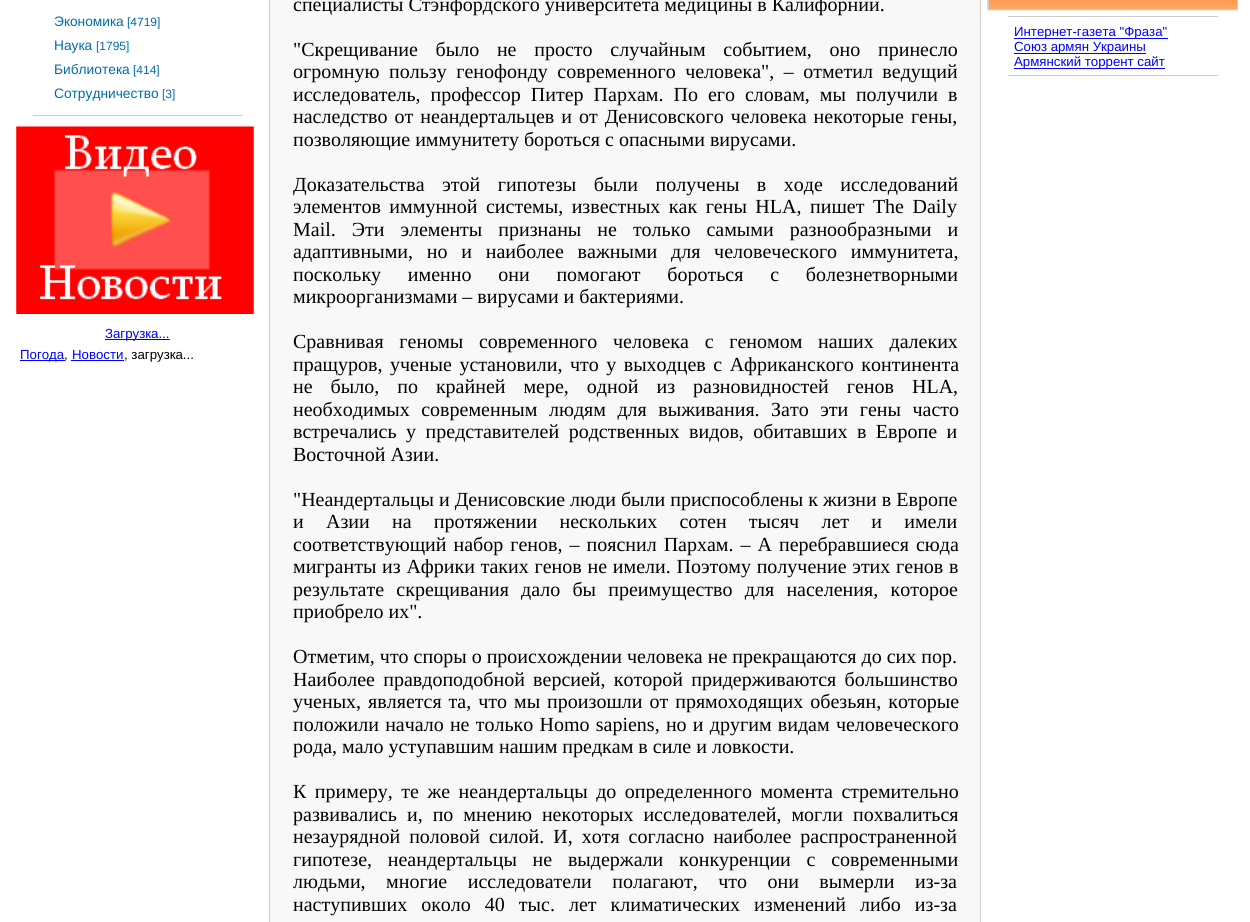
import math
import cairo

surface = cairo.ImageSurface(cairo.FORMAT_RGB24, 1250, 922)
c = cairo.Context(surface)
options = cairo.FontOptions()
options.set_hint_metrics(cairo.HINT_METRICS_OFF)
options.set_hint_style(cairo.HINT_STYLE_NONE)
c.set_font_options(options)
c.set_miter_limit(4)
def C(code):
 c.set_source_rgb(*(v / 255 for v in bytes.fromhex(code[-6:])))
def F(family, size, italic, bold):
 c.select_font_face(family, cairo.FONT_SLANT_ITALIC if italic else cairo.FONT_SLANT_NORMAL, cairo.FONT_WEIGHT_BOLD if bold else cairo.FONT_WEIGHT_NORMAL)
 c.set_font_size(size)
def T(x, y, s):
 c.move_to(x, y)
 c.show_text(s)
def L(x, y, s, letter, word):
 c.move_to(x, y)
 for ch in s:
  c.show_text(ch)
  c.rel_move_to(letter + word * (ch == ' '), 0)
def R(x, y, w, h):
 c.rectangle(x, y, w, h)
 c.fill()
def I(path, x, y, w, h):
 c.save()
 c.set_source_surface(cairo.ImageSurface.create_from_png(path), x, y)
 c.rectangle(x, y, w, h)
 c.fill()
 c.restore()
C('ffffff')
c.paint()
C('cdcdcd')
R(33,115,210,1)
F('Liberation Sans',13.75,0,0)
C('016cac')
T(54,26,'Экономика')
F('Liberation Sans',12,0,0)
T(127,26,'[4719]')
F('Liberation Sans',13.75,0,0)
T(54,50,'Наука')
F('Liberation Sans',12,0,0)
T(96,50,'[1795]')
F('Liberation Sans',13.75,0,0)
T(54,74,'Библиотека')
F('Liberation Sans',12,0,0)
T(133,74,'[414]')
F('Liberation Sans',13.75,0,0)
T(54,98,'Сотрудничество')
F('Liberation Sans',12,0,0)
T(162,98,'[3]')
I('1.png',16,126,238,188)
C('0000ff')
R(105,339,65,1)
F('Liberation Sans',13.25,0,0)
T(105,338,'Загрузка...')
R(20,360,45,1)
T(20,359,'Погода')
C('000000')
T(64,359,',')
C('0000ff')
T(72,359,'Новости')
R(71,360,53,1)
C('000000')
T(124,359,', загрузка...')
c.rectangle(269.5,-.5,711,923)
C('cccccc')
c.set_line_width(1)
c.stroke()
C('f8f8f8')
R(270,0,710,922)
F('Liberation Serif',20,0,0)
C('000000')
T(293,11,'специалисты Стэнфордского университета медицины в Калифорнии.')
L(293,56,'"Скрещивание было не просто случайным событием, оно принесло',0,12.75)
L(293,78,'огромную пользу генофонду современного человека", – отметил ведущий',0,4.5)
L(293,101,'исследователь, профессор Питер Пархам. По его словам, мы получили в',0,5)
L(293,123,'наследство от неандертальцев и от Денисовского человека некоторые гены,',0,2)
T(293,146,'позволяющие иммунитету бороться с опасными вирусами.')
L(293,191,'Доказательства этой гипотезы были получены в ходе исследований',0,12.5)
L(293,213,'элементов иммунной системы, известных как гены HLA, пишет The Daily',0,3.5)
L(293,236,'Mail. Эти элементы признаны не только самыми разнообразными и',0,11)
L(293,258,'адаптивными, но и наиболее важными для человеческого иммунитета,',0,8.75)
L(293,281,'поскольку именно они помогают бороться с болезнетворными',0,21.75)
T(293,303,'микроорганизмами – вирусами и бактериями.')
L(293,348,'Сравнивая геномы современного человека с геномом наших далеких',0,10.75)
L(293,371,'пращуров, ученые установили, что у выходцев с Африканского континента',0,2.5)
L(293,393,'не было, по крайней мере, одной из разновидностей генов HLA,',0,13)
L(293,416,'необходимых современным людям для выживания. Зато эти гены часто',0,6.5)
L(293,438,'встречались у представителей родственных видов, обитавших в Европе и',0,4.5)
T(293,461,'Восточной Азии.')
T(293,506,'"Неандертальцы и Денисовские люди были приспособлены к жизни в Европе')
L(293,528,'и Азии на протяжении нескольких сотен тысяч лет и имели',0,17.25)
L(293,551,'соответствующий набор генов, – пояснил Пархам. – А перебравшиеся сюда',0,2)
L(293,573,'мигранты из Африки таких генов не имели. Поэтому получение этих генов в',0,.75)
L(293,596,'результате скрещивания дало бы преимущество для населения, которое',0,7.25)
T(293,618,'приобрело их".')
T(293,663,'Отметим, что споры о происхождении человека не прекращаются до сих пор.')
L(293,686,'Наиболее правдоподобной версией, которой придерживаются большинство',0,3.25)
L(293,708,'ученых, является та, что мы произошли от прямоходящих обезьян, которые',0,2)
L(293,731,'положили начало не только Homo sapiens, но и другим видам человеческого',0,1.25)
T(293,753,'рода, мало уступавшим нашим предкам в силе и ловкости.')
L(293,798,'К примеру, те же неандертальцы до определенного момента стремительно',0,3.5)
L(293,821,'развивались и, по мнению некоторых исследователей, могли похвалиться',0,5)
L(293,843,'незаурядной половой силой. И, хотя согласно наиболее распространенной',0,4)
L(293,866,'гипотезе, неандертальцы не выдержали конкуренции с современными',0,10.75)
L(293,888,'людьми, многие исследователи полагают, что они вымерли из-за',0,15.5)
L(293,911,'наступивших около 40 тыс. лет климатических изменений либо из-за',0,9)
I('2.png',987,0,251,11)
c.rectangle(988.5,-.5,249,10)
C('cccccc')
c.stroke()
C('cdcdcd')
R(1008,16,210,1)
R(1008,75,210,1)
C('0000ff')
R(1014,38,154,1)
F('Liberation Sans',13.25,0,0)
T(1014,36,'Интернет-газета "Фраза"')
R(1014,53,132,1)
T(1014,51,'Союз армян Украины')
R(1014,68,151,1)
T(1014,66,'Армянский торрент сайт')
surface.write_to_png('o.png')
